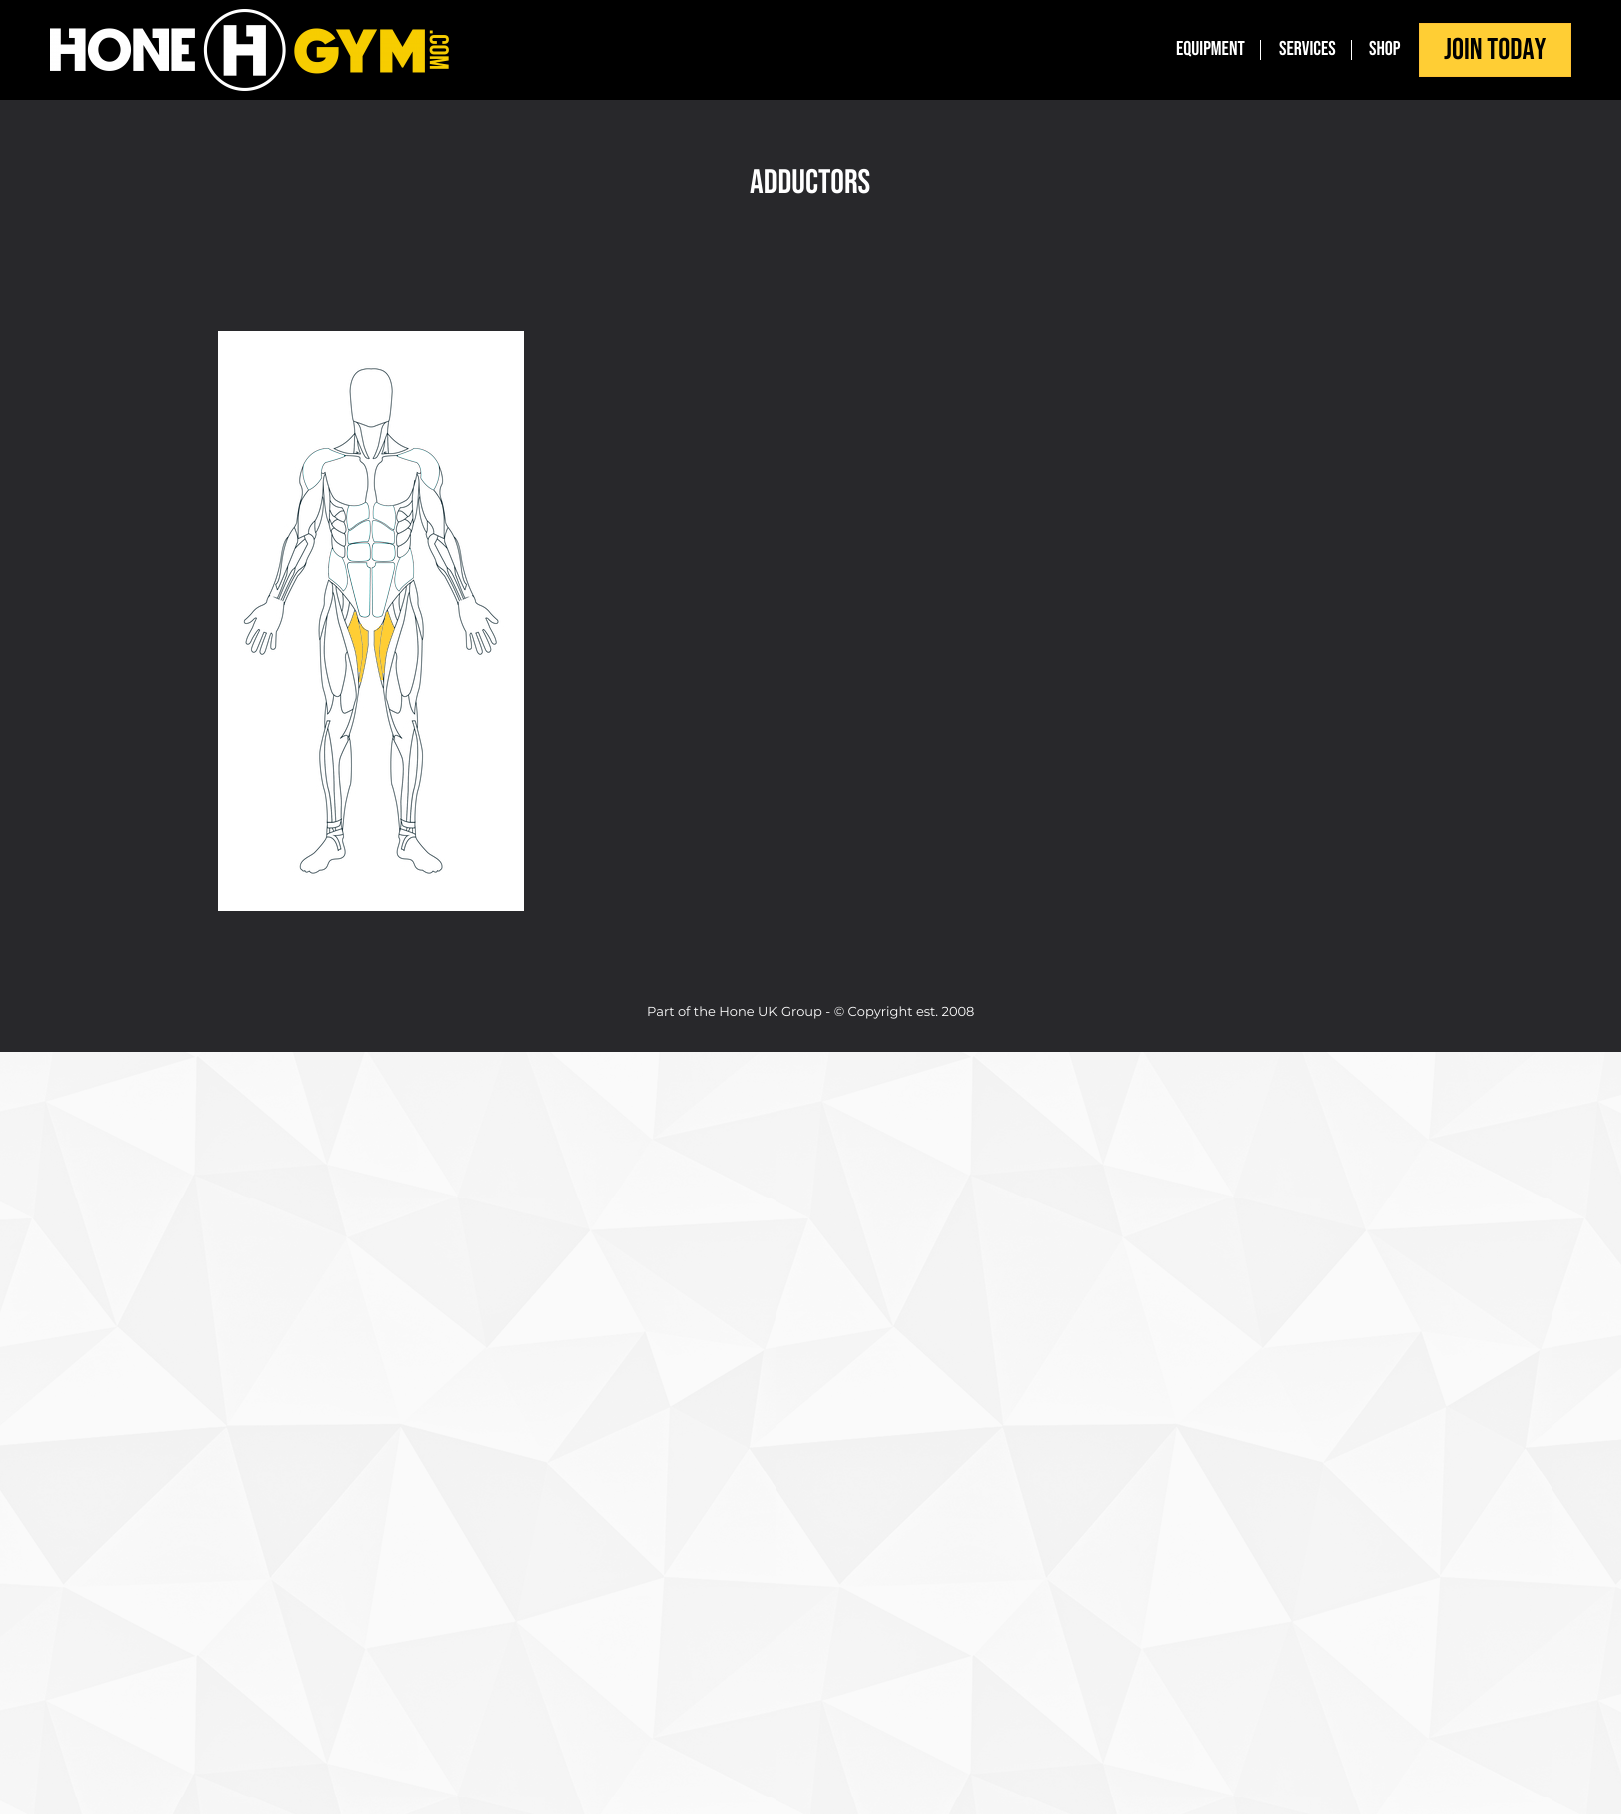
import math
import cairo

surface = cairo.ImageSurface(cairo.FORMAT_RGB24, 1621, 1814)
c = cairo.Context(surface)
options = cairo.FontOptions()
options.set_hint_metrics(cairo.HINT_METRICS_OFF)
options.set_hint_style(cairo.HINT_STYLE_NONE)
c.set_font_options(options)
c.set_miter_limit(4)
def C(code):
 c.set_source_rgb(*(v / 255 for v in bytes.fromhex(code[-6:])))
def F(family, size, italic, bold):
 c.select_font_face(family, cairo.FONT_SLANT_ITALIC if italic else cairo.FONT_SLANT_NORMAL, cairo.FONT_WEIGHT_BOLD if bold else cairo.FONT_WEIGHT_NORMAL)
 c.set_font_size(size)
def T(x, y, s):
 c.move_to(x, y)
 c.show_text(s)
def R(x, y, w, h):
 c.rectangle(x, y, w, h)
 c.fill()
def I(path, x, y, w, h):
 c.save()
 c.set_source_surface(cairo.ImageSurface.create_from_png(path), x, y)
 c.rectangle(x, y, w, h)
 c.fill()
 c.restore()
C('f9f9f9')
c.paint()
I('1.png',0,1052,1621,762)
C('28282b')
R(0,100,1621,952)
C('000000')
R(0,0,1621,100)
I('2.png',50,9,399,82)
F('Bebas Neue',20,0,0)
C('ffffff')
T(1176,55,'EQUIPMENT')
R(1260,40,1,20)
T(1279,55,'SERVICES')
R(1351,40,1,20)
T(1369,55,'SHOP')
C('ffce34')
c.rectangle(1419.5,23.5,151,53)
c.fill_preserve()
C('fdc134')
c.set_line_width(1)
c.stroke()
F('Bebas Neue',30,0,0)
C('000000')
T(1444,59,'JOIN TODAY')
F('Bebas Neue',34,0,0)
C('ffffff')
T(750,193,'ADDUCTORS')
I('3.png',218,331,306,580)
F('Montserrat',13,0,0)
T(647,1016,'Part of the Hone UK Group - © Copyright est. 2008')
surface.write_to_png('o.png')
